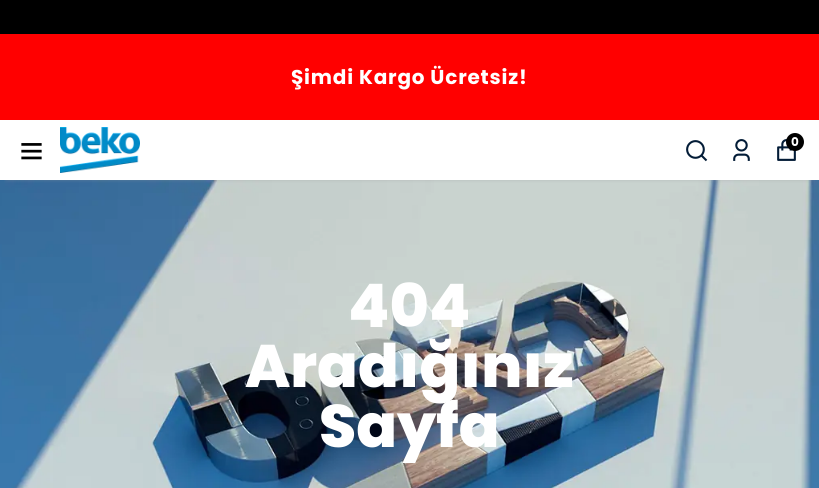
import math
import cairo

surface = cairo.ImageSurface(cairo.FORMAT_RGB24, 819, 488)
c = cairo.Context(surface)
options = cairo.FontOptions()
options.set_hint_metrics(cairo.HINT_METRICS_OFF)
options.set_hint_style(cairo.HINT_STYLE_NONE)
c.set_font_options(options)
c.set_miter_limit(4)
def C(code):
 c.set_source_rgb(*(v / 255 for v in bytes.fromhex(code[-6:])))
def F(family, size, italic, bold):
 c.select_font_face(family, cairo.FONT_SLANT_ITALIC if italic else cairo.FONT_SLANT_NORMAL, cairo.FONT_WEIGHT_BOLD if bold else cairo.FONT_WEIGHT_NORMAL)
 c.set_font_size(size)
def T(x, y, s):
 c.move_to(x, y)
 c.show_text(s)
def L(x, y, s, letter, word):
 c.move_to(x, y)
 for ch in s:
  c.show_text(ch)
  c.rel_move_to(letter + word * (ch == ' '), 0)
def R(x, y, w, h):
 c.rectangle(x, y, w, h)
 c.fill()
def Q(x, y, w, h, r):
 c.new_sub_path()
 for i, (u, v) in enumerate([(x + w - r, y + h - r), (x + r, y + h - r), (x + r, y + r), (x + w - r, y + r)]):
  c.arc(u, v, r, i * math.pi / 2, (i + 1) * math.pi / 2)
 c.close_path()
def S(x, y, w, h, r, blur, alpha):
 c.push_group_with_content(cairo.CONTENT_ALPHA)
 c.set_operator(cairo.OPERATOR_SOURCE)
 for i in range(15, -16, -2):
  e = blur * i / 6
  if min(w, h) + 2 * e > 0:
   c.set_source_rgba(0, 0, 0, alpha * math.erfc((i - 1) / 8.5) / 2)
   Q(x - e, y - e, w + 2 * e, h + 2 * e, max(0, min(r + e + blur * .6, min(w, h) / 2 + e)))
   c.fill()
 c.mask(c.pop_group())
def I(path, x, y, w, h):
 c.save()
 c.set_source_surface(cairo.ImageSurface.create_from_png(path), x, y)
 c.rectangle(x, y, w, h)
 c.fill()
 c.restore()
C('ffffff')
c.paint()
C('000000')
R(0,0,819,34)
C('ff0000')
R(0,34,819,86)
F('Poppins',20,0,1)
C('ffffff')
L(291,84,'Şimdi Kargo Ücretsiz!',.8,0)
I('6.png',0,180,819,308)
c.save()
c.rectangle(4,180,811,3)
c.clip()
C('989898')
S(7,132,805,46,0,2.5,1)
c.restore()
I('1.png',60,127,80,46)
I('2.png',686,140,22,22)
I('3.png',733,139,17,22)
I('4.png',777,139,19,22)
C('000000')
c.arc(795,142,9,0,2 * math.pi)
c.fill()
F('Poppins',12,0,1)
C('ffffff')
T(791,146,'0')
I('5.png',21,143,21,17)
F('Poppins ExtraBold',60,0,0)
T(348,327,'404')
T(245,387,'Aradığınız')
T(319,447,'Sayfa')
surface.write_to_png('o.png')
